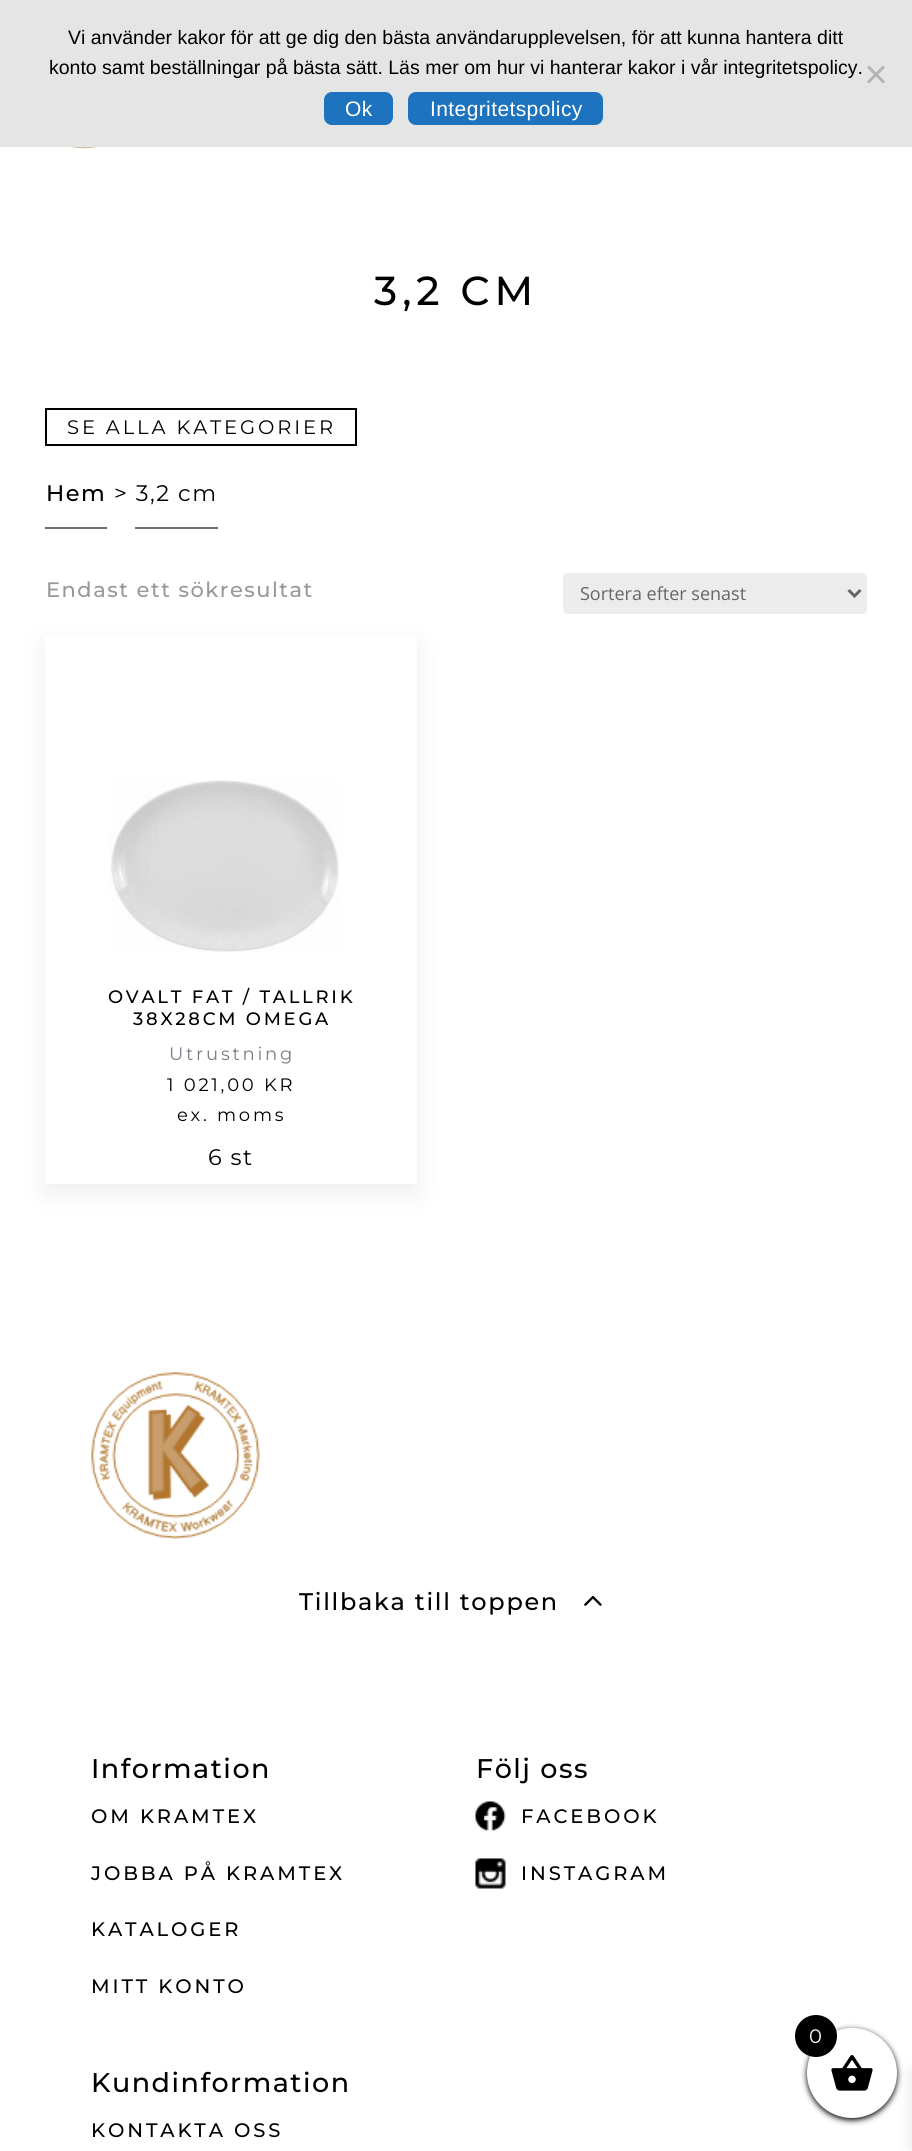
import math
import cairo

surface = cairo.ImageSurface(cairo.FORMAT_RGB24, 912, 2151)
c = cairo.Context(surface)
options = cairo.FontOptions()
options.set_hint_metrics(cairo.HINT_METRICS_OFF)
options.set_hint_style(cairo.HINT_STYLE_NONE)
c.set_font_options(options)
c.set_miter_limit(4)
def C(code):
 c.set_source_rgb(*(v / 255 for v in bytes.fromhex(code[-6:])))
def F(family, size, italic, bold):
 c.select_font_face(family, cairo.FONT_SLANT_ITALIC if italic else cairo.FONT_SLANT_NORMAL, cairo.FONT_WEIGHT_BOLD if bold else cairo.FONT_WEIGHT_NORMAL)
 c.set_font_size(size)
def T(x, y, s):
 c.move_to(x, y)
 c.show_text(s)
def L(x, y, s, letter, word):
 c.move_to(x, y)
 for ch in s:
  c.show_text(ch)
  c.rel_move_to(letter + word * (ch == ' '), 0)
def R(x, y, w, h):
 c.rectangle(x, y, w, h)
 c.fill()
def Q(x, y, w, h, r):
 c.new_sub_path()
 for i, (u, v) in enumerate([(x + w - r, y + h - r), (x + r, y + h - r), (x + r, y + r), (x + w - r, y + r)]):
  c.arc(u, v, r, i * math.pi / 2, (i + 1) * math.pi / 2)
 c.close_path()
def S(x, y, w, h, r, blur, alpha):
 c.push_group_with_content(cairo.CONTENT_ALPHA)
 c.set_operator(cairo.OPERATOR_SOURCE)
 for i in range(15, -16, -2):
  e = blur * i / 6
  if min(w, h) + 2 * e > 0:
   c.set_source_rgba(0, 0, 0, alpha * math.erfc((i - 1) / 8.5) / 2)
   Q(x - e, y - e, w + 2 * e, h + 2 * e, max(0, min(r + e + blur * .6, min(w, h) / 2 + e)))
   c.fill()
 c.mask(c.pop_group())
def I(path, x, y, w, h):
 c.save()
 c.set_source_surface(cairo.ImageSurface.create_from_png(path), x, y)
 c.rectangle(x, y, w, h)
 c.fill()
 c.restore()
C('ffffff')
c.paint()
C('e5e5e5')
R(0,0,912,147)
F('Liberation Sans',19.5,0,0)
C('000000')
T(68,44,'Vi använder kakor för att ge dig den bästa användarupplevelsen, för att kunna hantera ditt')
T(49,74,'konto samt beställningar på bästa sätt. Läs mer om hur vi hanterar kakor i vår integritetspolicy.')
C('b3b3b3')
c.new_path()
c.move_to(883,65.5)
c.line_to(885,67.5)
c.line_to(869,83.5)
c.line_to(867,81.5)
c.close_path()
c.fill()
c.new_path()
c.move_to(867,67.5)
c.line_to(869,65.5)
c.line_to(885,81.5)
c.line_to(883,83.5)
c.close_path()
c.fill()
C('1e73be')
Q(324,92,69,33,8)
c.fill()
F('Liberation Sans',21,0,0)
C('ffffff')
L(345,116,'Ok',.4,0)
C('1e73be')
Q(408,92,195,33,8)
c.fill()
C('ffffff')
L(430,116,'Integritetspolicy',.4,0)
I('1.png',71,147,26,2)
F('Montserrat Thin',40.5,0,0)
C('000000')
L(374,305,'3,2 CM',5,0)
c.rectangle(46,409,310,36)
c.stroke()
F('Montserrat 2 Thin',19.5,0,0)
L(67,434,'SE ALLA KATEGORIER',2.9,0)
C('707070')
R(45,527,62,2)
F('Montserrat Thin',22.5,0,0)
C('000000')
L(46,501,'Hem',1.5,0)
F('Montserrat 2 Thin',22.5,0,0)
L(114,501,'> 3,2 cm',1.5,0)
C('707070')
R(135,527,83,2)
F('Montserrat Thin',21,0,0)
C('999999')
L(46,597,'Endast ett sökresultat',1.5,0)
C('ececec')
Q(563,573,304,41,5)
c.fill()
c.new_path()
c.move_to(848.5,590)
c.line_to(854.5,596)
c.line_to(860.5,590)
C('666666')
c.set_line_width(3)
c.stroke()
F('Open Sans',18,0,0)
T(580,600,'Sortera efter senast')
c.save()
c.set_fill_rule(cairo.FILL_RULE_EVEN_ODD)
c.new_path()
c.move_to(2,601)
c.line_to(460,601)
c.line_to(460,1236)
c.line_to(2,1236)
c.close_path()
c.move_to(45,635)
c.line_to(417,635)
c.line_to(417,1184)
c.line_to(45,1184)
c.close_path()
c.clip()
C('000000')
S(45,644,372,549,0,14,.07)
c.restore()
I('2.png',110,780,229,172)
F('Montserrat Thin',18,0,0)
C('000000')
L(108,1003,'OVALT FAT / TALLRIK',2.75,0)
L(133,1025,'38X28CM OMEGA',2.75,0)
F('Montserrat 2 Thin',18,0,0)
C('797f84')
L(169,1060,'Utrustning',2.75,0)
C('000000')
L(167,1091,'1 021,00 KR',2.75,0)
L(177,1121,'ex. moms',2.75,0)
F('Montserrat 2 Thin',22.5,0,0)
L(208,1165,'6 st',1.5,0)
I('3.png',91,1372,169,167)
F('Montserrat Thin',24,0,0)
L(299,1610,'Tillbaka till toppen',1.7,0)
I('4.png',584,1595,18,11)
F('Montserrat Thin',27,0,0)
L(91,1778,'Information',1.5,0)
F('Montserrat Thin',19.5,0,0)
L(91,1823,'OM KRAMTEX',2.9,0)
L(91,1880,'JOBBA PÅ KRAMTEX',2.9,0)
L(91,1936,'KATALOGER',2.9,0)
L(91,1993,'MITT KONTO',2.9,0)
F('Montserrat Thin',27,0,0)
L(476,1778,'Följ oss',1.5,0)
I('5.png',475,1801,31,30)
F('Montserrat Thin',19.5,0,0)
L(521,1823,'FACEBOOK',2.9,0)
I('6.png',475,1858,31,31)
L(521,1880,'INSTAGRAM',2.9,0)
F('Montserrat Thin',27,0,0)
L(91,2092,'Kundinformation',1.5,0)
F('Montserrat Thin',19.5,0,0)
L(91,2137,'KONTAKTA OSS',2.9,0)
C('000000')
S(807,2030,90,90,45,3,1)
S(912,2072,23,78,0,7.5,.1)
C('ffffff')
c.arc(852,2073,45,0,2 * math.pi)
c.fill()
I('7.png',831,2055,42,36)
C('000000')
c.arc(816,2036,21,0,2 * math.pi)
c.fill()
F('Montserrat 2 Thin',19.5,0,0)
C('ffffff')
L(809,2043,'0',1.5,0)
surface.write_to_png('o.png')
